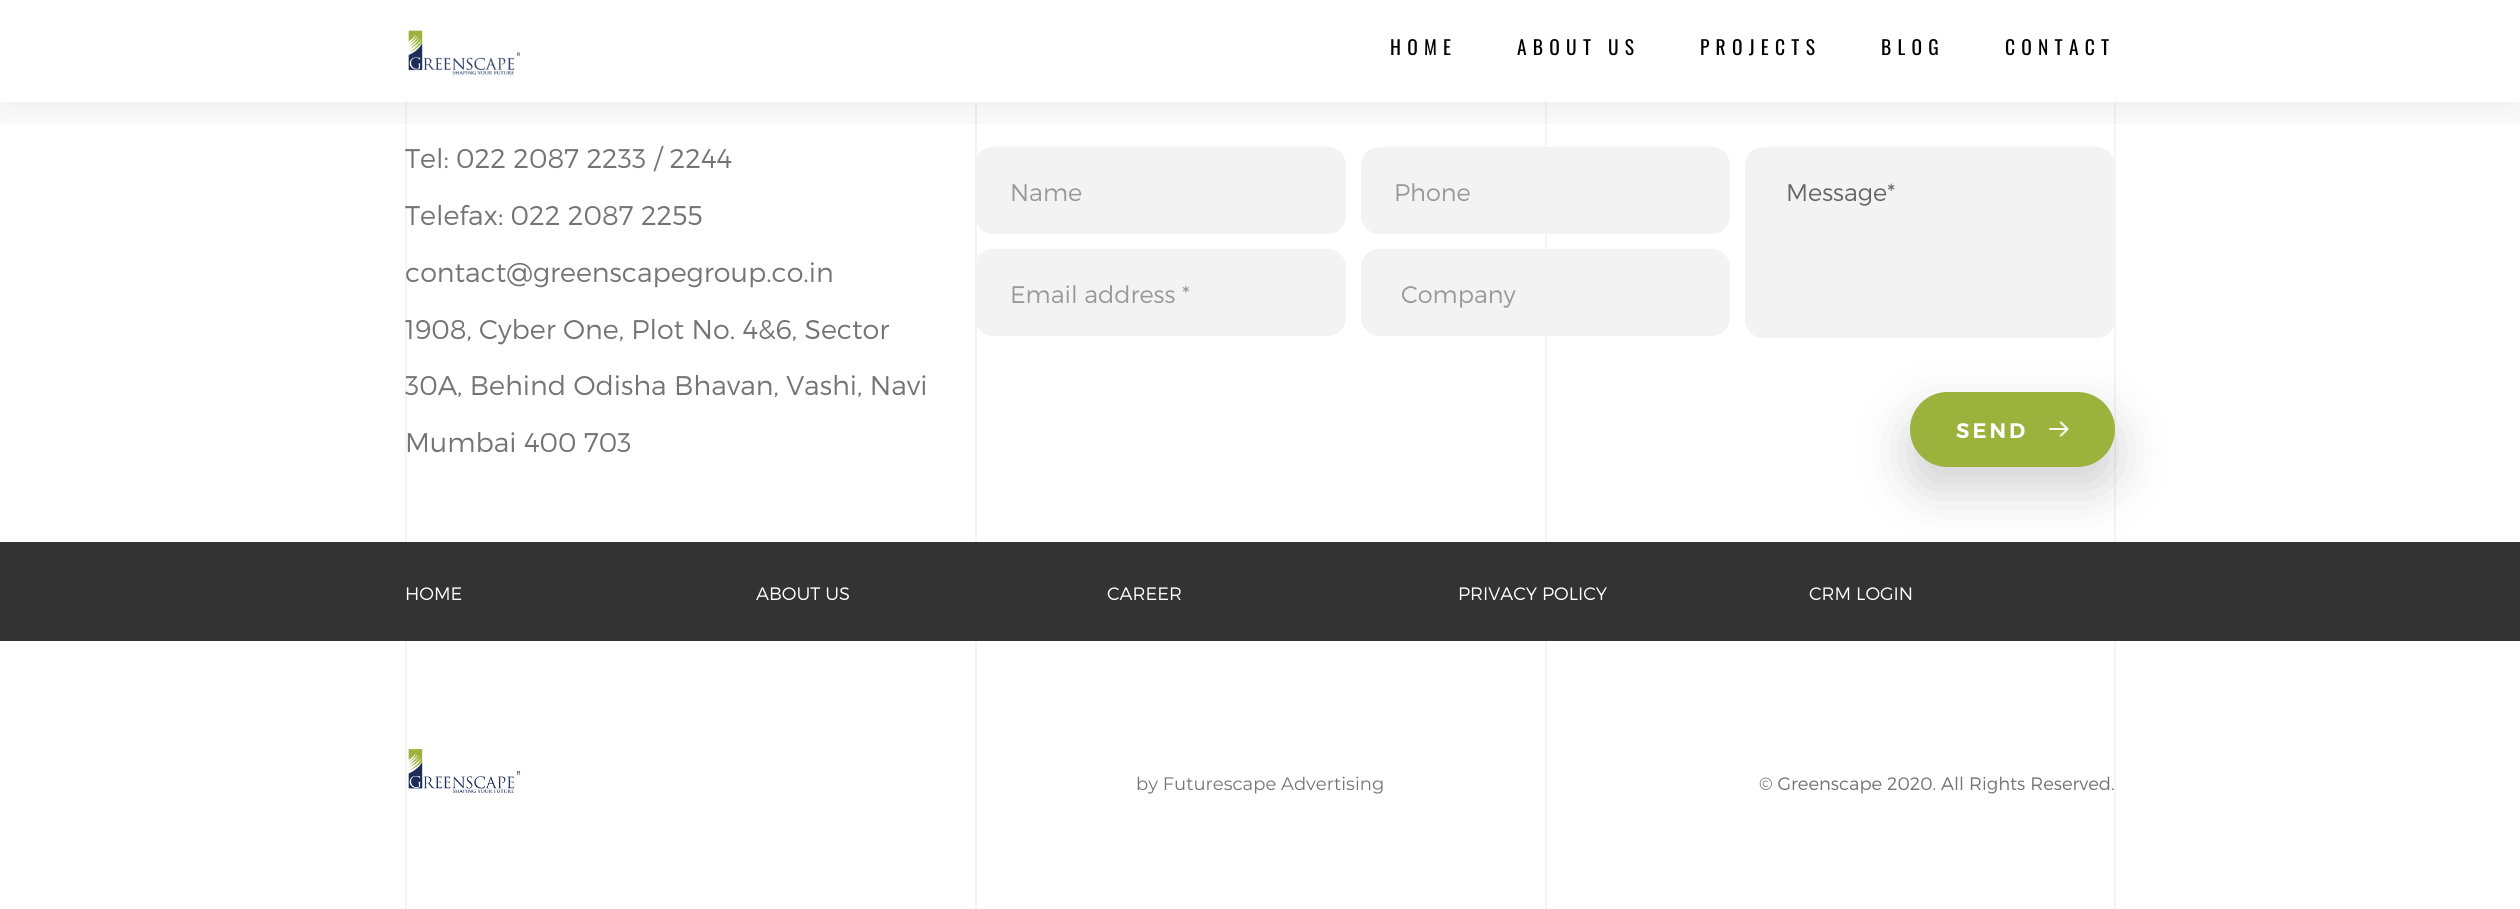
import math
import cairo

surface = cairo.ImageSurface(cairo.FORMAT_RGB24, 2520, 909)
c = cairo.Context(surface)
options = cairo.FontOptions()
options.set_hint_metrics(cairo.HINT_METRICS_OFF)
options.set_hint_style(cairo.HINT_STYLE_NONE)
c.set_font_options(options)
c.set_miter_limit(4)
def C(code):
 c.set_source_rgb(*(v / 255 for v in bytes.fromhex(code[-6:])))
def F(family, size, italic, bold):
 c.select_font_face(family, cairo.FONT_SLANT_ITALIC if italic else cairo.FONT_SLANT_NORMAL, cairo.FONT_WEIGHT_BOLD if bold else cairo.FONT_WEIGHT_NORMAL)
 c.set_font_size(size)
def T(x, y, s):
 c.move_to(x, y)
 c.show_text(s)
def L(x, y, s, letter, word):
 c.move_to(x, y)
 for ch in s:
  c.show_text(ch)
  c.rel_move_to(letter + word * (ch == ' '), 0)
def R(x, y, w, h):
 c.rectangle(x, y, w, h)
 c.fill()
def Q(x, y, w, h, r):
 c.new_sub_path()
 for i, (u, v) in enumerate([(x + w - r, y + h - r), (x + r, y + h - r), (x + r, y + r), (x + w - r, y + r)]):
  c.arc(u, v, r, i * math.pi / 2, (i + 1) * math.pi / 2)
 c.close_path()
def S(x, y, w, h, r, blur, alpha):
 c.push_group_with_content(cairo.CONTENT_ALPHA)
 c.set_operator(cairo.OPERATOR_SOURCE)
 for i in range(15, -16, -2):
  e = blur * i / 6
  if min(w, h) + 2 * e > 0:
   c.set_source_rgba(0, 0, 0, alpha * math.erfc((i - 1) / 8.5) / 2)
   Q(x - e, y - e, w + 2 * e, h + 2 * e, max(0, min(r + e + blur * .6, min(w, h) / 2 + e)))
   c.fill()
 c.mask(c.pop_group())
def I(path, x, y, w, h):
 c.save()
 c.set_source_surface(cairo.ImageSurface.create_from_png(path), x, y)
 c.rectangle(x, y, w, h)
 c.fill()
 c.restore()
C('ffffff')
c.paint()
C('f4f4f4')
R(405,102,2,807)
R(975,102,2,807)
R(1545,102,2,807)
R(2114,102,2,807)
C('f3f3f3')
Q(976,148,369,85,17)
c.fill_preserve()
c.stroke()
Q(1362,148,367,85,17)
c.fill_preserve()
c.stroke()
Q(1746,148,368,189,17)
c.fill_preserve()
c.stroke()
c.save()
c.rectangle(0,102,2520,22)
c.clip()
C('000000')
S(0,0,2520,102,0,26,.1)
c.restore()
I('1.png',408,30,113,45)
F('Oswald',19.5,0,0)
C('000000')
L(1390,55,'HOME',6.25,0)
L(1517,55,'ABOUT US',6.25,0)
L(1700,55,'PROJECTS',6.25,0)
L(1881,55,'BLOG',6.25,0)
L(2005,55,'CONTACT',6.25,0)
F('Montserrat Light',27,0,0)
C('747474')
T(405,168,'Tel: 022 2087 2233 / 2244')
T(405,225,'Telefax: 022 2087 2255')
T(405,282,'contact@greenscapegroup.co.in')
T(405,339,'1908, Cyber One, Plot No. 4&6, Sector')
T(405,395,'30A, Behind Odisha Bhavan, Vashi, Navi')
T(405,452,'Mumbai 400 703')
F('Montserrat Light',24,0,0)
C('999999')
T(1010,201,'Name')
C('f3f3f3')
Q(976,250,369,85,17)
c.fill_preserve()
c.stroke()
C('999999')
T(1010,303,'Email address *')
T(1394,201,'Phone')
C('f3f3f3')
Q(1362,250,367,85,17)
c.fill_preserve()
c.stroke()
C('999999')
T(1401,303,'Company')
C('666666')
T(1786,201,'Message*')
C('333333')
R(0,542,2520,99)
C('000000')
S(1910,414,205,75,37.5,25.5,.18)
C('9bb23c')
Q(1910,392,205,75,37.5)
c.fill()
F('Montserrat SemiBold',21,0,0)
C('ffffff')
L(1956,438,'SEND',3,0)
I('2.png',2049,421,20,16)
F('Montserrat Light',18,0,0)
T(405,600,'HOME')
T(756,600,'ABOUT US')
T(1107,600,'CAREER')
T(1458,600,'PRIVACY POLICY')
T(1809,600,'CRM LOGIN')
I('3.png',408,749,113,44)
F('Montserrat',18,0,0)
C('747474')
T(1136,790,'by Futurescape Advertising')
F('Montserrat Light',18,0,0)
T(1759,790,'© Greenscape 2020. All Rights Reserved.')
surface.write_to_png('o.png')
